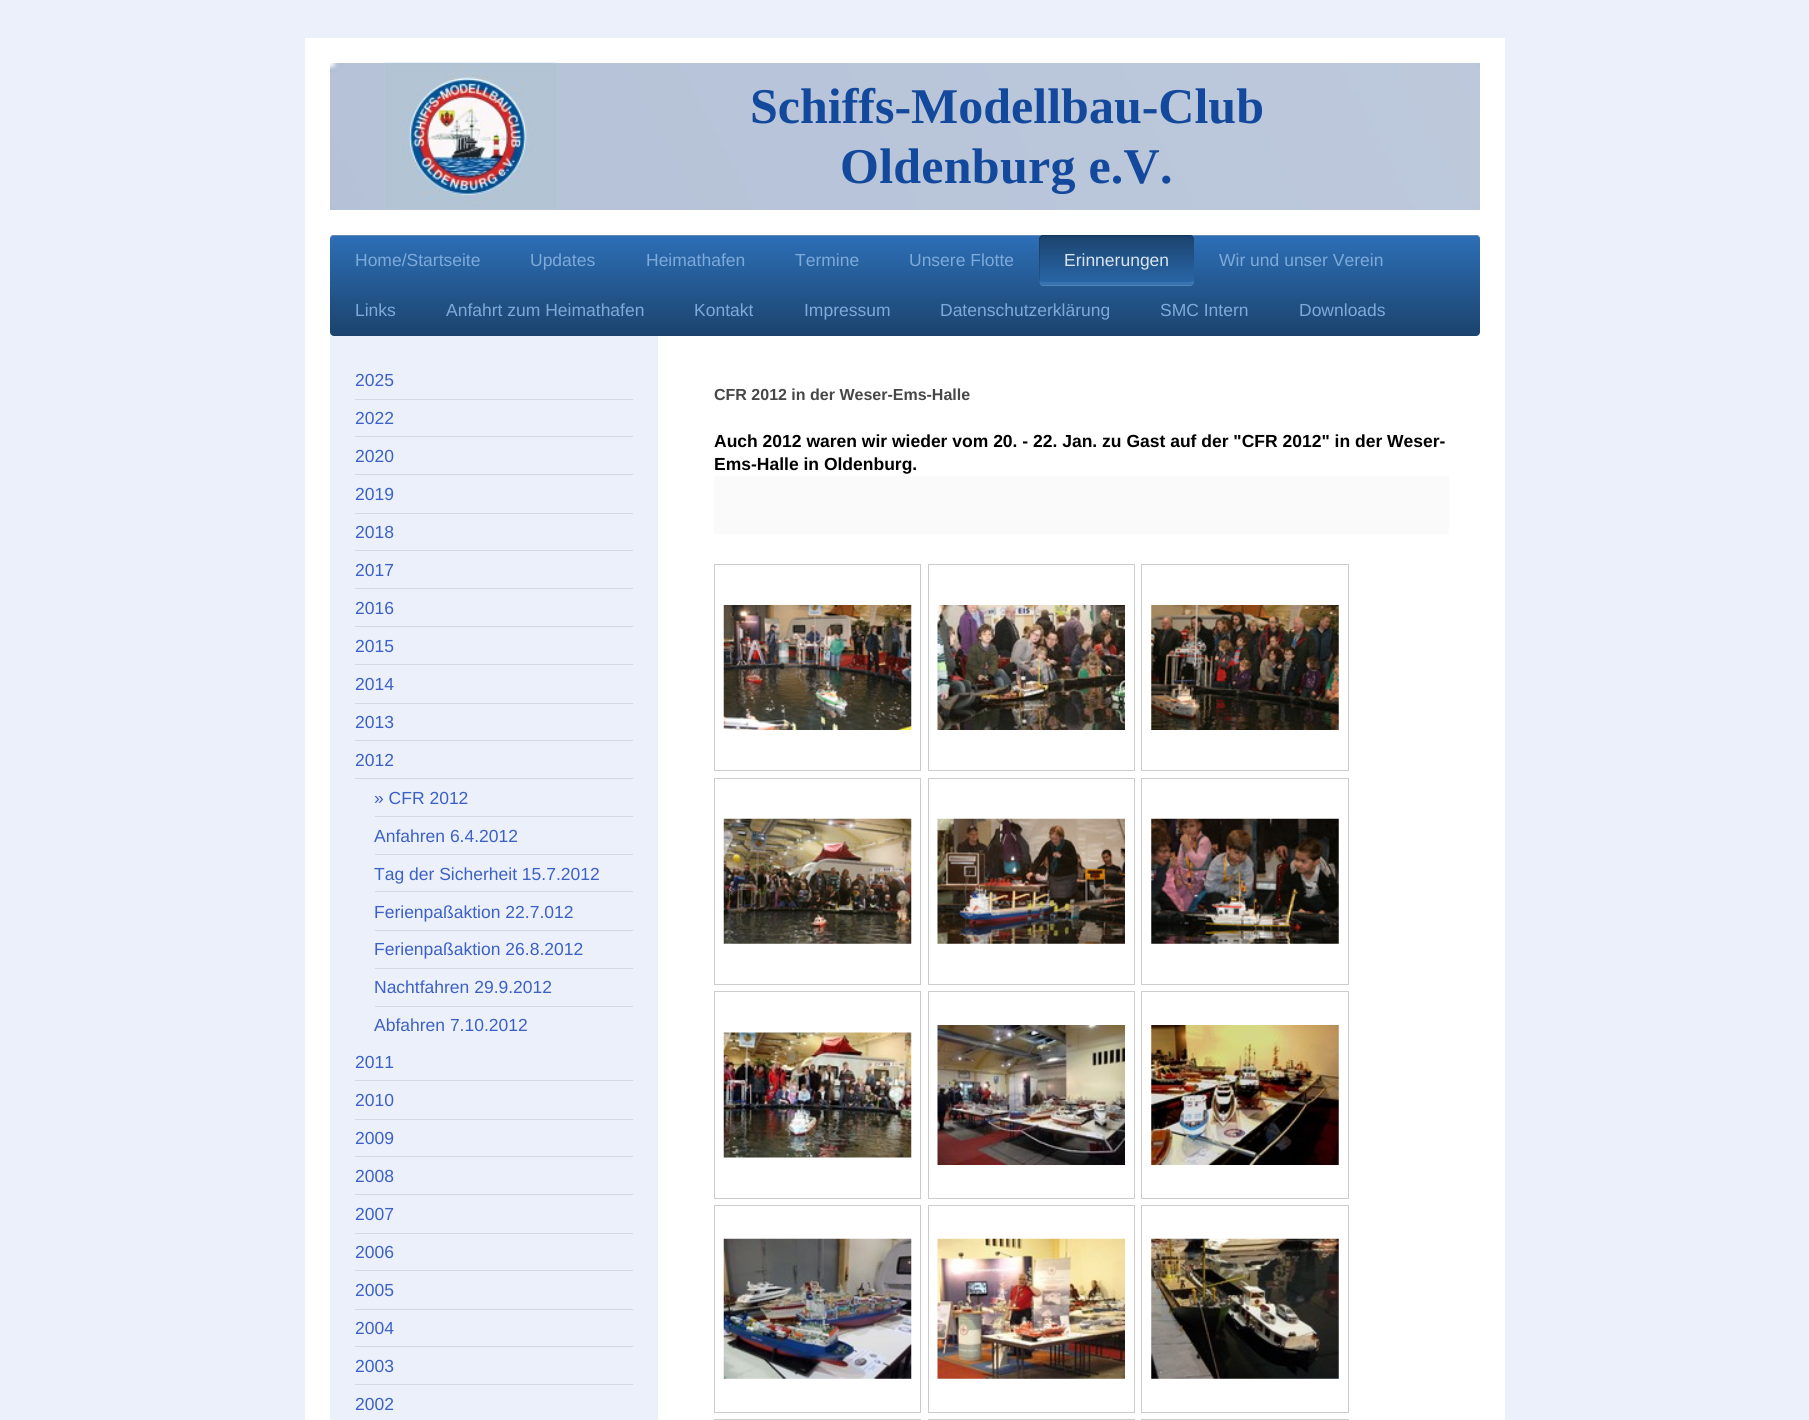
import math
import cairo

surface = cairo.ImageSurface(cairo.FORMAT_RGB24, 1809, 1420)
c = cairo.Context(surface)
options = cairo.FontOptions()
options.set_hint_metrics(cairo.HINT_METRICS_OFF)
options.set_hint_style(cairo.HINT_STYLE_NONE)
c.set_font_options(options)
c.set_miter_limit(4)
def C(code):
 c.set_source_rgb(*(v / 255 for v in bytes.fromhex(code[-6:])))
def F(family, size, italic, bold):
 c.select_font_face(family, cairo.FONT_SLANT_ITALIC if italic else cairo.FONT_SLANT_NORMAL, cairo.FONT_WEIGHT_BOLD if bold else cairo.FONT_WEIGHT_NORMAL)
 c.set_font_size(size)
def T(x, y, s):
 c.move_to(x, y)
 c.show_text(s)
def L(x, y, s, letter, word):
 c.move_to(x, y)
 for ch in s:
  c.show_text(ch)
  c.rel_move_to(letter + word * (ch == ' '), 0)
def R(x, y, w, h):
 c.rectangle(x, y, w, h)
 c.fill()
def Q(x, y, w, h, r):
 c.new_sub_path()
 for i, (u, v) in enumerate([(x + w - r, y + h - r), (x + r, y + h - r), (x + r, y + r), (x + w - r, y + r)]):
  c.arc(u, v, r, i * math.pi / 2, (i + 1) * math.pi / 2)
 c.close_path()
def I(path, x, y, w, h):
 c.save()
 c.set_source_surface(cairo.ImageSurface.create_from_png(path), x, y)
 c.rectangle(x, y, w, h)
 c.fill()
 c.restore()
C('ecf0fb')
c.paint()
C('ffffff')
R(305,38,1200,1382)
C('a2b2cd')
R(330,63,1150,147)
I('2.png',330,63,1150,147)
I('1.png',383,62,175,148)
F('Liberation Serif',50,0,1)
C('12499c')
T(750,123,'Schiffs-Modellbau-Club')
L(840,183,'Oldenburg e.V.',.25,0)
gradient = cairo.LinearGradient(330,235,330,336)
gradient.add_color_stop_rgba(0,0.176,0.435,0.718,1)
gradient.add_color_stop_rgba(1,0.106,0.263,0.427,1)
c.set_source(gradient)
Q(330,235,1150,101,4)
c.fill()
C('23578e')
c.new_path()
c.move_to(334,236)
c.line_to(1476,236)
c.curve_to(1478,236,1480,238,1480,240)
c.curve_to(1480,237,1479,235,1476,235)
c.line_to(334,235)
c.curve_to(331,235,330,237,330,240)
c.curve_to(330,238,332,236,334,236)
c.close_path()
c.fill()
c.set_source_rgba(1,1,1,0.3)
c.new_path()
c.move_to(334,236)
c.line_to(1476,236)
c.curve_to(1478,236,1480,238,1480,240)
c.curve_to(1480,237,1479,235,1476,235)
c.line_to(334,235)
c.curve_to(331,235,330,237,330,240)
c.curve_to(330,238,332,236,334,236)
c.close_path()
c.fill()
F('Liberation Sans',17.5,0,0)
C('7daad9')
T(355,266,'Home/Startseite')
T(530,266,'Updates')
T(646,266,'Heimathafen')
T(795,266,'Termine')
T(909,266,'Unsere Flotte')
gradient = cairo.LinearGradient(1039,286,1039,235)
gradient.add_color_stop_rgba(0,0.165,0.408,0.671,1)
gradient.add_color_stop_rgba(1,0.106,0.263,0.427,1)
c.set_source(gradient)
Q(1039,235,155,51,4)
c.fill()
c.set_source_rgba(0,0,0,0.15)
c.new_path()
c.move_to(1044,236)
c.line_to(1191,236)
c.line_to(1193,237)
c.curve_to(1193,236,1191,235,1190,235)
c.line_to(1043,235)
c.curve_to(1041,235,1039,237,1039,239)
c.line_to(1039,282)
c.curve_to(1039,283,1039,284,1040,285)
c.line_to(1040,247)
c.curve_to(1040,245,1038,236,1044,236)
c.close_path()
c.fill()
c.set_source_rgba(0,0,0,0.04)
c.new_path()
c.move_to(1042,239)
c.line_to(1190,239)
c.curve_to(1192,239,1194,240,1194,242)
c.line_to(1194,239)
c.curve_to(1194,237,1192,235,1190,235)
c.line_to(1043,235)
c.curve_to(1041,235,1039,237,1039,239)
c.line_to(1039,242)
c.curve_to(1039,240,1040,239,1042,239)
c.close_path()
c.fill()
c.set_source_rgba(1,1,1,0.08)
c.new_path()
c.move_to(1039,279)
c.line_to(1039,282)
c.curve_to(1039,284,1041,286,1043,286)
c.line_to(1190,286)
c.curve_to(1192,286,1194,284,1194,282)
c.line_to(1194,279)
c.curve_to(1194,281,1192,282,1190,282)
c.line_to(1042,282)
c.curve_to(1040,282,1039,281,1039,279)
c.close_path()
c.fill()
c.set_source_rgba(1,1,1,0.1)
c.new_path()
c.move_to(1039,281)
c.curve_to(1039,283,1040,285,1042,286)
c.line_to(1191,286)
c.curve_to(1193,285,1194,283,1194,281)
c.curve_to(1194,283,1192,285,1190,285)
c.line_to(1042,285)
c.curve_to(1040,285,1039,283,1039,281)
c.close_path()
c.fill()
C('d9e4f0')
T(1064,266,'Erinnerungen')
C('7daad9')
T(1219,266,'Wir und unser Verein')
T(355,316,'Links')
T(446,316,'Anfahrt zum Heimathafen')
T(694,316,'Kontakt')
T(804,316,'Impressum')
T(940,316,'Datenschutzerklärung')
T(1160,316,'SMC Intern')
T(1299,316,'Downloads')
C('ecf0fb')
R(330,336,328,1084)
C('d4d8e2')
R(355,399,278,1)
C('3c61c6')
T(355,386,'2025')
C('d4d8e2')
R(355,436,278,1)
C('3c61c6')
T(355,424,'2022')
C('d4d8e2')
R(355,474,278,1)
C('3c61c6')
T(355,462,'2020')
C('d4d8e2')
R(355,513,278,1)
C('3c61c6')
T(355,500,'2019')
C('d4d8e2')
R(355,550,278,1)
C('3c61c6')
T(355,538,'2018')
C('d4d8e2')
R(355,588,278,1)
C('3c61c6')
T(355,576,'2017')
C('d4d8e2')
R(355,626,278,1)
C('3c61c6')
T(355,614,'2016')
C('d4d8e2')
R(355,664,278,1)
C('3c61c6')
T(355,652,'2015')
C('d4d8e2')
R(355,703,278,1)
C('3c61c6')
T(355,690,'2014')
C('d4d8e2')
R(355,740,278,1)
C('3c61c6')
T(355,728,'2013')
C('d4d8e2')
R(355,778,278,1)
C('3c61c6')
T(355,766,'2012')
C('d4d8e2')
R(375,816,258,1)
C('3c61c6')
T(374,804,'» CFR 2012')
C('d4d8e2')
R(375,854,258,1)
C('3c61c6')
T(374,842,'Anfahren 6.4.2012')
C('d4d8e2')
R(375,891,258,1)
C('3c61c6')
T(374,880,'Tag der Sicherheit 15.7.2012')
C('d4d8e2')
R(375,930,258,1)
C('3c61c6')
T(374,918,'Ferienpaßaktion 22.7.012')
C('d4d8e2')
R(375,968,258,1)
C('3c61c6')
T(374,955,'Ferienpaßaktion 26.8.2012')
C('d4d8e2')
R(375,1006,258,1)
C('3c61c6')
T(374,993,'Nachtfahren 29.9.2012')
T(374,1031,'Abfahren 7.10.2012')
C('d4d8e2')
R(355,1080,278,1)
C('3c61c6')
T(355,1068,'2011')
C('d4d8e2')
R(355,1119,278,1)
C('3c61c6')
T(355,1106,'2010')
C('d4d8e2')
R(355,1156,278,1)
C('3c61c6')
T(355,1144,'2009')
C('d4d8e2')
R(355,1194,278,1)
C('3c61c6')
T(355,1182,'2008')
C('d4d8e2')
R(355,1233,278,1)
C('3c61c6')
T(355,1220,'2007')
C('d4d8e2')
R(355,1270,278,1)
C('3c61c6')
T(355,1258,'2006')
C('d4d8e2')
R(355,1309,278,1)
C('3c61c6')
T(355,1296,'2005')
C('d4d8e2')
R(355,1346,278,1)
C('3c61c6')
T(355,1334,'2004')
C('d4d8e2')
R(355,1384,278,1)
C('3c61c6')
T(355,1372,'2003')
T(355,1410,'2002')
F('Liberation Sans',16,0,1)
C('474747')
T(714,400,'CFR 2012 in der Weser-Ems-Halle')
F('Liberation Sans',17.5,0,1)
C('000000')
T(714,447,'Auch 2012 waren wir wieder vom 20. - 22. Jan. zu Gast auf der "CFR 2012" in der Weser-')
T(714,470,'Ems-Halle in Oldenburg.')
C('fafafa')
R(714,476,735,58)
c.rectangle(714.5,564.5,206,206)
C('cccccc')
c.set_line_width(1)
c.stroke()
I('3.png',723,605,189,125)
c.rectangle(928.5,564.5,206,206)
c.stroke()
I('4.png',937,605,188,125)
c.rectangle(1141.5,564.5,207,206)
c.stroke()
I('5.png',1151,605,188,125)
c.rectangle(714.5,778.5,206,206)
c.stroke()
I('6.png',723,818,189,126)
c.rectangle(928.5,778.5,206,206)
c.stroke()
I('7.png',937,818,188,126)
c.rectangle(1141.5,778.5,207,206)
c.stroke()
I('8.png',1151,818,188,126)
c.rectangle(714.5,991.5,206,207)
c.stroke()
I('9.png',723,1032,189,126)
c.rectangle(928.5,991.5,206,207)
c.stroke()
I('10.png',937,1025,188,140)
c.rectangle(1141.5,991.5,207,207)
c.stroke()
I('11.png',1151,1025,188,140)
c.rectangle(714.5,1205.5,206,207)
c.stroke()
I('12.png',723,1238,189,141)
c.rectangle(928.5,1205.5,206,207)
c.stroke()
I('13.png',937,1238,188,141)
c.rectangle(1141.5,1205.5,207,207)
c.stroke()
I('14.png',1151,1238,188,141)
c.rectangle(714.5,1419.5,206,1)
c.stroke()
c.rectangle(928.5,1419.5,206,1)
c.stroke()
c.rectangle(1141.5,1419.5,207,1)
c.stroke()
surface.write_to_png('o.png')
